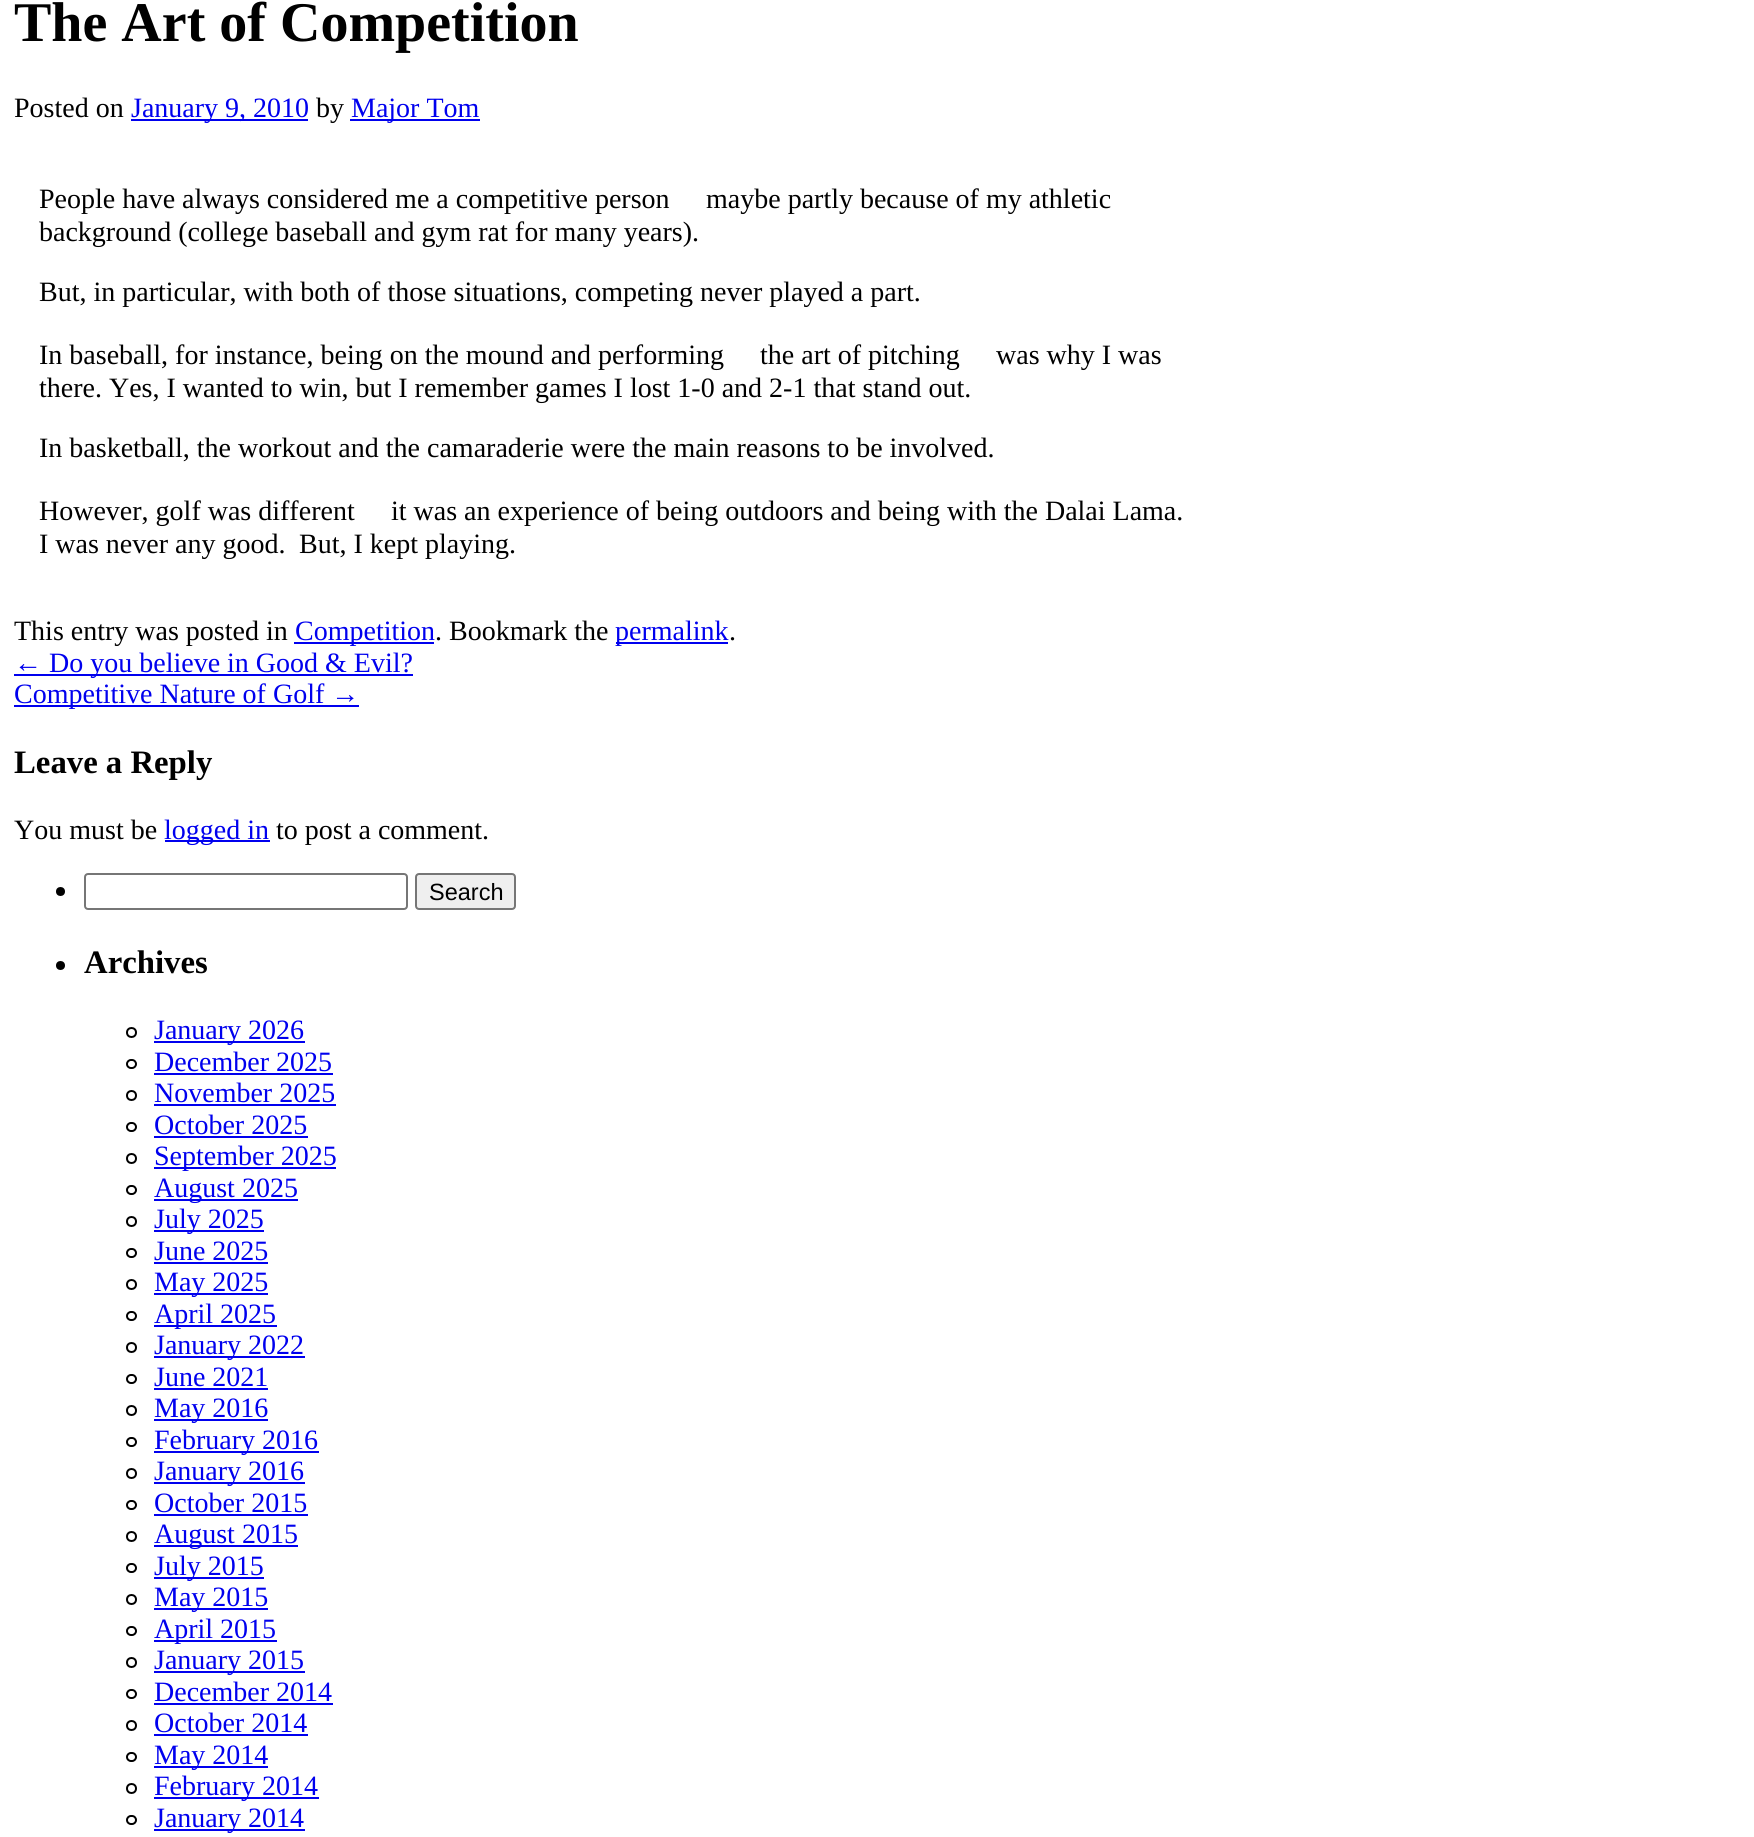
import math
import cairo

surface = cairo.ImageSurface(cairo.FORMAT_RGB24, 1754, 1837)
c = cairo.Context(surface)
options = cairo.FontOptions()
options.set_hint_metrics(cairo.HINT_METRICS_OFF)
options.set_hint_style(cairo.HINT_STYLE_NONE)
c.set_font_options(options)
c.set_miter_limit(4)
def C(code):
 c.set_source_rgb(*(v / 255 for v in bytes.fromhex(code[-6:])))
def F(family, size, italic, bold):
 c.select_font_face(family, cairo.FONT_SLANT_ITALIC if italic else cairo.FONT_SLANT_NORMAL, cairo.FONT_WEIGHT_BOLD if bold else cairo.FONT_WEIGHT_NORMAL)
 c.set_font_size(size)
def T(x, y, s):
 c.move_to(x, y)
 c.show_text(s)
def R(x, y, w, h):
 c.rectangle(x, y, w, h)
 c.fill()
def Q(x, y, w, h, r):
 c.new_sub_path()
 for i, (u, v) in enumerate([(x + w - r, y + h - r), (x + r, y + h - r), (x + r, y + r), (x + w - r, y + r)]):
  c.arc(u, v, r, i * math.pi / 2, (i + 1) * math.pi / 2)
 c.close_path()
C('ffffff')
c.paint()
F('Liberation Serif',56,0,1)
C('000000')
T(14,41,'The Art of Competition')
F('Liberation Serif',28,0,0)
T(14,117,'Posted on')
C('0000ee')
R(131,119,177,2)
T(131,117,'January 9, 2010')
C('000000')
T(316,117,'by')
C('0000ee')
R(350,119,130,2)
T(351,117,'Major Tom')
C('000000')
T(39,208,'People have always considered me a competitive person')
T(706,208,'maybe partly because of my athletic')
T(39,241,'background (college baseball and gym rat for many years).')
T(39,301,'But, in particular, with both of those situations, competing never played a part.')
T(39,364,'In baseball, for instance, being on the mound and performing')
T(760,364,'the art of pitching')
T(996,364,'was why I was')
T(39,397,'there. Yes, I wanted to win, but I remember games I lost 1-0 and 2-1 that stand out.')
T(39,457,'In basketball, the workout and the camaraderie were the main reasons to be involved.')
T(39,520,'However, golf was different')
T(391,520,'it was an experience of being outdoors and being with the Dalai Lama.')
T(39,553,'I was never any good.')
T(299,553,'But, I kept playing.')
T(14,640,'This entry was posted in')
C('0000ee')
R(294,642,140,2)
T(295,640,'Competition')
C('000000')
T(435,640,'. Bookmark the')
C('0000ee')
R(616,642,112,2)
T(615,640,'permalink')
C('000000')
T(729,640,'.')
C('0000ee')
R(14,674,399,2)
T(14,672,'← Do you believe in Good & Evil?')
R(14,705,345,2)
T(14,703,'Competitive Nature of Golf →')
F('Liberation Serif',32.75,0,1)
C('000000')
T(14,773,'Leave a Reply')
F('Liberation Serif',28,0,0)
T(14,839,'You must be')
C('0000ee')
R(165,840,105,2)
T(164,839,'logged in')
C('000000')
T(276,839,'to post a comment.')
c.new_path()
c.arc(60.5,891.5,4.5,0,2 * math.pi)
c.fill()
Q(85,874,322,35,3)
C('767676')
c.stroke()
C('efefef')
Q(416,874,99,35,3)
c.fill_preserve()
C('767676')
c.stroke()
F('Liberation Sans',23.5,0,0)
C('000000')
T(429,900,'Search')
c.new_path()
c.arc(60.5,965.5,4.5,0,2 * math.pi)
c.fill()
F('Liberation Serif',32.75,0,1)
T(84,973,'Archives')
c.new_path()
c.arc(131.5,1032.5,4.5,0,2 * math.pi)
c.stroke()
C('0000ee')
R(154,1041,151,2)
F('Liberation Serif',28,0,0)
T(154,1039,'January 2026')
Q(127,1060,9,8,4)
C('000000')
c.stroke()
C('0000ee')
T(154,1071,'December 2025')
R(154,1073,179,2)
c.new_path()
c.arc(131.5,1095.5,4.5,0,2 * math.pi)
C('000000')
c.stroke()
C('0000ee')
T(154,1102,'November 2025')
R(154,1104,182,2)
Q(127,1123,9,8,4)
C('000000')
c.stroke()
C('0000ee')
T(154,1134,'October 2025')
R(154,1136,154,2)
c.new_path()
c.arc(131.5,1158.5,4.5,0,2 * math.pi)
C('000000')
c.stroke()
C('0000ee')
R(154,1167,182,2)
T(154,1165,'September 2025')
Q(127,1186,9,8,4)
C('000000')
c.stroke()
C('0000ee')
R(154,1199,144,2)
T(154,1197,'August 2025')
c.new_path()
c.arc(131.5,1221.5,4.5,0,2 * math.pi)
C('000000')
c.stroke()
C('0000ee')
R(154,1230,110,2)
T(154,1228,'July 2025')
Q(127,1249,9,8,4)
C('000000')
c.stroke()
C('0000ee')
T(154,1260,'June 2025')
R(154,1262,114,2)
c.new_path()
c.arc(131.5,1284.5,4.5,0,2 * math.pi)
C('000000')
c.stroke()
C('0000ee')
R(154,1293,114,2)
T(154,1291,'May 2025')
Q(127,1312,9,8,4)
C('000000')
c.stroke()
C('0000ee')
R(154,1325,123,2)
T(154,1323,'April 2025')
c.new_path()
c.arc(131.5,1347.5,4.5,0,2 * math.pi)
C('000000')
c.stroke()
C('0000ee')
R(154,1356,151,2)
T(154,1354,'January 2022')
Q(127,1375,9,8,4)
C('000000')
c.stroke()
C('0000ee')
T(154,1386,'June 2021')
R(154,1388,114,2)
c.new_path()
c.arc(131.5,1410.5,4.5,0,2 * math.pi)
C('000000')
c.stroke()
C('0000ee')
R(154,1419,114,2)
T(154,1417,'May 2016')
Q(127,1438,9,8,4)
C('000000')
c.stroke()
C('0000ee')
R(154,1451,165,2)
T(154,1449,'February 2016')
c.new_path()
c.arc(131.5,1473.5,4.5,0,2 * math.pi)
C('000000')
c.stroke()
C('0000ee')
R(154,1482,151,2)
T(154,1480,'January 2016')
Q(127,1501,9,8,4)
C('000000')
c.stroke()
C('0000ee')
T(154,1512,'October 2015')
R(154,1514,154,2)
c.new_path()
c.arc(131.5,1536.5,4.5,0,2 * math.pi)
C('000000')
c.stroke()
C('0000ee')
R(154,1545,144,2)
T(154,1543,'August 2015')
Q(127,1564,9,8,4)
C('000000')
c.stroke()
C('0000ee')
R(154,1577,110,2)
T(154,1575,'July 2015')
c.new_path()
c.arc(131.5,1599.5,4.5,0,2 * math.pi)
C('000000')
c.stroke()
C('0000ee')
R(154,1608,114,2)
T(154,1606,'May 2015')
Q(127,1627,9,8,4)
C('000000')
c.stroke()
C('0000ee')
R(154,1640,123,2)
T(154,1638,'April 2015')
c.new_path()
c.arc(131.5,1662.5,4.5,0,2 * math.pi)
C('000000')
c.stroke()
C('0000ee')
R(154,1671,151,2)
T(154,1669,'January 2015')
Q(127,1690,9,8,4)
C('000000')
c.stroke()
C('0000ee')
T(154,1701,'December 2014')
R(154,1703,179,2)
c.new_path()
c.arc(131.5,1725.5,4.5,0,2 * math.pi)
C('000000')
c.stroke()
C('0000ee')
T(154,1732,'October 2014')
R(154,1734,154,2)
Q(127,1753,9,8,4)
C('000000')
c.stroke()
C('0000ee')
R(154,1766,114,2)
T(154,1764,'May 2014')
c.new_path()
c.arc(131.5,1788.5,4.5,0,2 * math.pi)
C('000000')
c.stroke()
C('0000ee')
R(154,1797,165,2)
T(154,1795,'February 2014')
Q(127,1816,9,8,4)
C('000000')
c.stroke()
C('0000ee')
R(154,1829,151,2)
T(154,1827,'January 2014')
surface.write_to_png('o.png')
